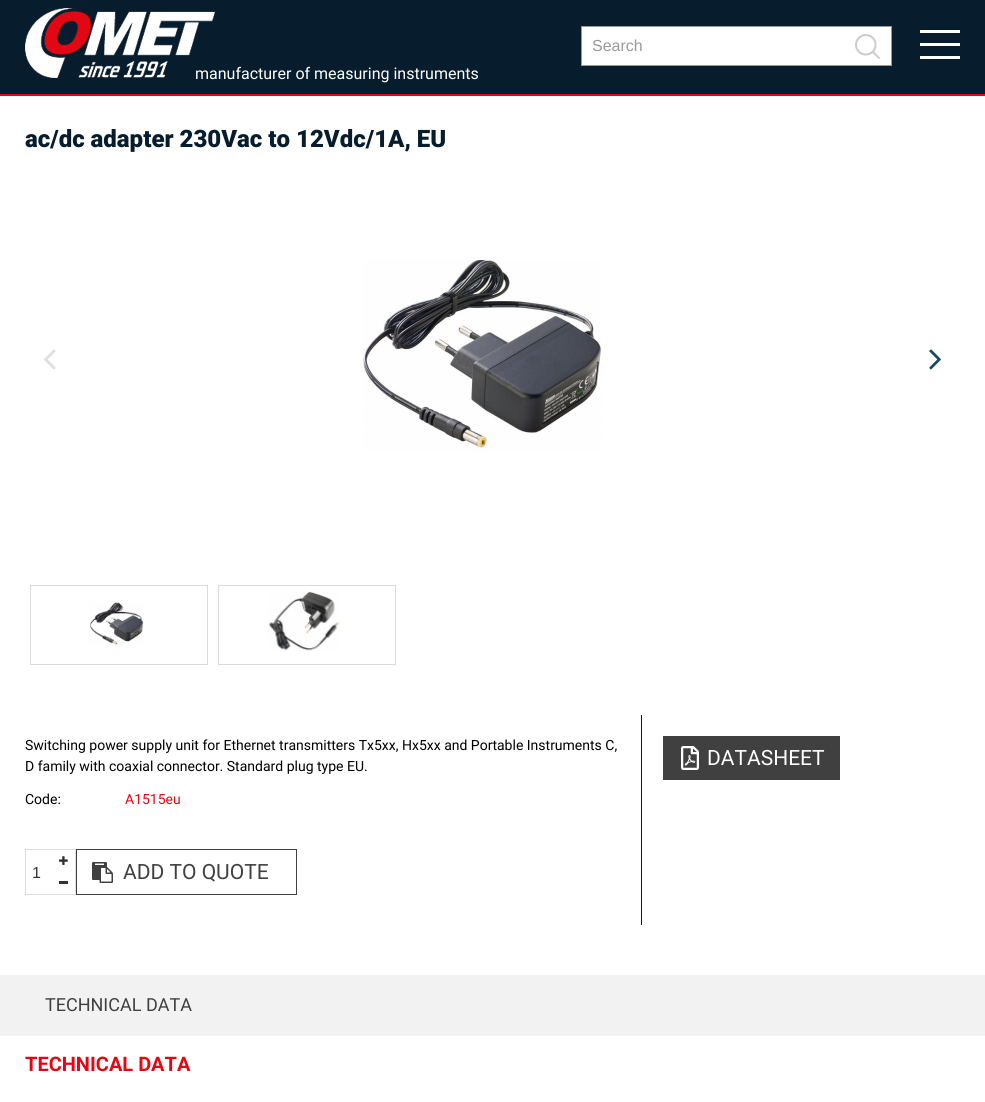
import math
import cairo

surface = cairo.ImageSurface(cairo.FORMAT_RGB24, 985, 1102)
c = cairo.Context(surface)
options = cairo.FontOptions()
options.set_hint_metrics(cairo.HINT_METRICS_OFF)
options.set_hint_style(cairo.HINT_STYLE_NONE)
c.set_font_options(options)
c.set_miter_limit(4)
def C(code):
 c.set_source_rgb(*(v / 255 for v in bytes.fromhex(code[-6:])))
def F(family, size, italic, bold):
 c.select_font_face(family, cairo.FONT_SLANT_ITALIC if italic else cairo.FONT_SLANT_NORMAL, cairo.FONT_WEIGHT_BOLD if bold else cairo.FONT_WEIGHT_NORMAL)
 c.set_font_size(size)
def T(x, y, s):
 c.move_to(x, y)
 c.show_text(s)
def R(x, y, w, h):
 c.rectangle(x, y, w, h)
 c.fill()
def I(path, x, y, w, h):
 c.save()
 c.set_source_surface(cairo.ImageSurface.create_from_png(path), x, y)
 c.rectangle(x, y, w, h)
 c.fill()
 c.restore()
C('ffffff')
c.paint()
C('071d2d')
R(0,0,985,94)
I('1.png',25,8,190,70)
C('ffffff')
c.rectangle(581.5,26.5,310,39)
c.fill_preserve()
C('999999')
c.set_line_width(1)
c.stroke()
F('Liberation Sans',16,0,0)
T(592,51,'Search')
I('2.png',855,34,25,25)
C('ffffff')
R(920,30,40,3)
R(920,43,40,3)
R(920,56,40,3)
F('Roboto',16,0,0)
T(195,79,'manufacturer of measuring instruments')
C('e30613')
R(0,94,985,2)
F('Roboto Black',24,0,0)
C('071d2d')
T(25,147,'ac/dc adapter 230Vac to 12Vdc/1A, EU')
I('3.png',44,349,12,21)
I('4.png',363,259,239,192)
I('5.png',929,349,12,21)
c.rectangle(30.5,585.5,177,79)
C('dbdbdb')
c.stroke()
I('6.png',89,602,55,43)
c.rectangle(218.5,585.5,177,79)
c.stroke()
I('7.png',268,591,72,60)
C('071d2d')
R(641,715,1,210)
F('Roboto',14,0,0)
C('000000')
T(25,750,'Switching power supply unit for Ethernet transmitters Tx5xx, Hx5xx and Portable Instruments C,')
T(25,771,'D family with coaxial connector. Standard plug type EU.')
T(25,804,'Code:')
C('e30613')
T(125,804,'A1515eu')
c.rectangle(25.5,849.5,50,45)
C('dddddd')
c.stroke()
I('8.png',59,856,9,9)
F('Liberation Sans',16,0,0)
C('333333')
T(32,878,'1')
R(59,881,9,3)
c.rectangle(76.5,849.5,220,45)
C('404040')
c.stroke()
I('9.png',92,862,21,21)
F('Roboto',21,0,0)
T(123,879,'ADD TO QUOTE')
R(663,736,177,44)
I('10.png',681,746,18,24)
C('ffffff')
T(707,765,'DATASHEET')
C('f2f2f2')
R(0,975,985,61)
F('Roboto',18,0,0)
C('404040')
T(45,1011,'TECHNICAL DATA')
F('Roboto',20,0,1)
C('e30613')
T(25,1071,'TECHNICAL DATA')
surface.write_to_png('o.png')
